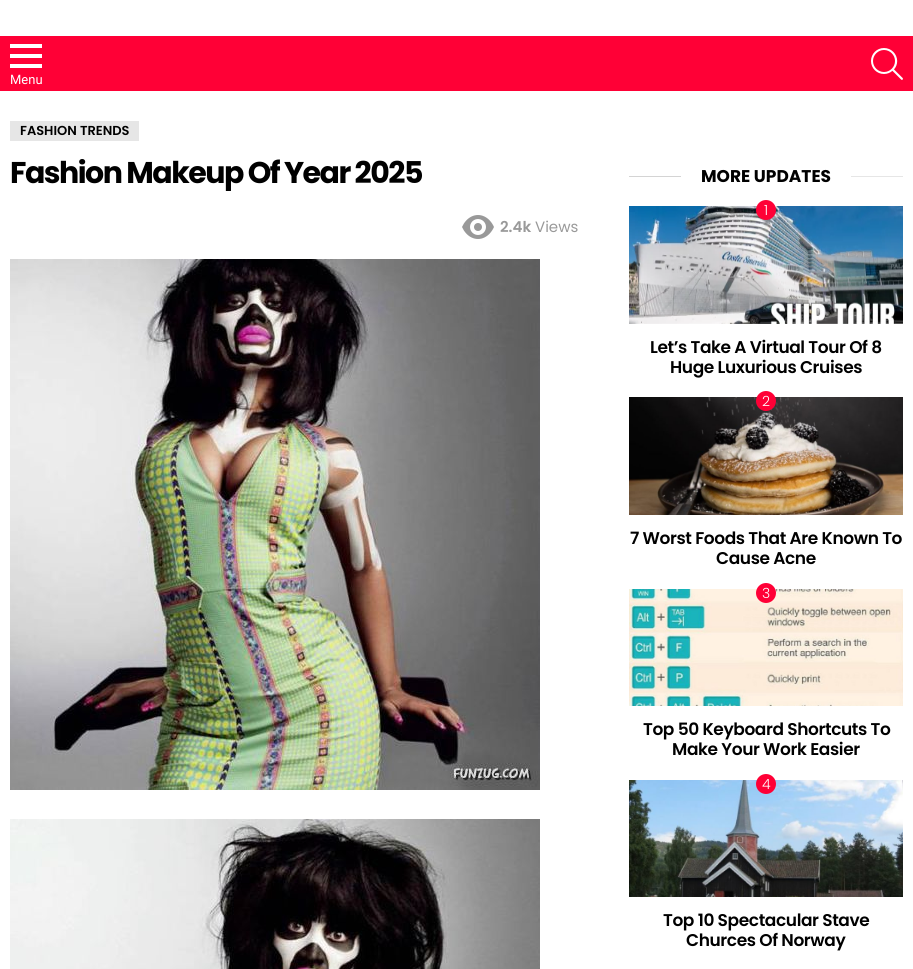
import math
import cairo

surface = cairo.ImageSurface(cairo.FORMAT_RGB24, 913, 969)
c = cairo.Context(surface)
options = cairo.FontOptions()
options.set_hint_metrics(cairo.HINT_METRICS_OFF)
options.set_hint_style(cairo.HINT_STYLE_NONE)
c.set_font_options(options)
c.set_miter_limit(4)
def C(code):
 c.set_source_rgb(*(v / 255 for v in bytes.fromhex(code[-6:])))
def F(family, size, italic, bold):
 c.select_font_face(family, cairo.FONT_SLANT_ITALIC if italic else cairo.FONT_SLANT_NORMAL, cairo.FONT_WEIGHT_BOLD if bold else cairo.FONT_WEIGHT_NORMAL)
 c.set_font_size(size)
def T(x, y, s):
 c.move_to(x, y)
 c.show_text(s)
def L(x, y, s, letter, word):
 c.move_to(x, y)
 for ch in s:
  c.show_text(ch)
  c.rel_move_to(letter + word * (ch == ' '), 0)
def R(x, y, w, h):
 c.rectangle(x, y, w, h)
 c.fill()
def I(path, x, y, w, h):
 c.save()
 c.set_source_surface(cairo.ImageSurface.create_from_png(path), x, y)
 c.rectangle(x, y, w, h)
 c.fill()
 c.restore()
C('ffffff')
c.paint()
C('ff0036')
R(0,36,913,55)
I('1.png',10,44,32,24)
F('Roboto',13,0,0)
C('ffffff')
T(10,84,'Menu')
I('2.png',871,48,32,32)
C('e6e6e6')
R(10,121,129,20)
F('Poppins SemiBold',13,0,0)
C('000000')
T(20,135,'FASHION TRENDS')
F('Poppins',30,0,1)
L(10,183,'Fashion Makeup Of Year 2025',-1.5,0)
I('3.png',462,215,32,24)
F('Poppins SemiBold',15,0,0)
C('999999')
T(500,232,'2.4k')
F('Poppins',15,0,0)
T(535,232,'Views')
I('4.png',10,259,530,531)
I('5.png',10,819,530,150)
C('d4d4d4')
R(629,176,52,1)
F('Poppins',17,0,1)
C('000000')
T(701,182,'MORE UPDATES')
C('e6e6e6')
R(851,176,52,1)
I('6.png',629,206,274,118)
C('ff0036')
c.arc(766,210,10,0,2 * math.pi)
c.fill()
F('Poppins Light',14,0,0)
C('ffffff')
T(764,215,'1')
F('Poppins SemiBold',17,0,0)
C('000000')
L(650,353,'Let’s Take A Virtual Tour Of 8',-.4,0)
L(670,373,'Huge Luxurious Cruises',-.4,0)
I('7.png',629,397,274,118)
C('ff0036')
c.arc(766,401,10,0,2 * math.pi)
c.fill()
F('Poppins Light',14,0,0)
C('ffffff')
T(762,406,'2')
F('Poppins SemiBold',17,0,0)
C('000000')
L(630,544,'7 Worst Foods That Are Known To',-.4,0)
L(716,564,'Cause Acne',-.4,0)
I('8.png',629,589,274,117)
C('ff0036')
c.arc(766,593,10,0,2 * math.pi)
c.fill()
F('Poppins Light',14,0,0)
C('ffffff')
T(762,598,'3')
F('Poppins SemiBold',17,0,0)
C('000000')
L(643,735,'Top 50 Keyboard Shortcuts To',-.4,0)
L(672,755,'Make Your Work Easier',-.4,0)
I('9.png',629,780,274,117)
C('ff0036')
c.arc(766,784,10,0,2 * math.pi)
c.fill()
F('Poppins Light',14,0,0)
C('ffffff')
T(762,789,'4')
F('Poppins SemiBold',17,0,0)
C('000000')
L(663,926,'Top 10 Spectacular Stave',-.4,0)
L(686,946,'Churces Of Norway',-.4,0)
surface.write_to_png('o.png')
